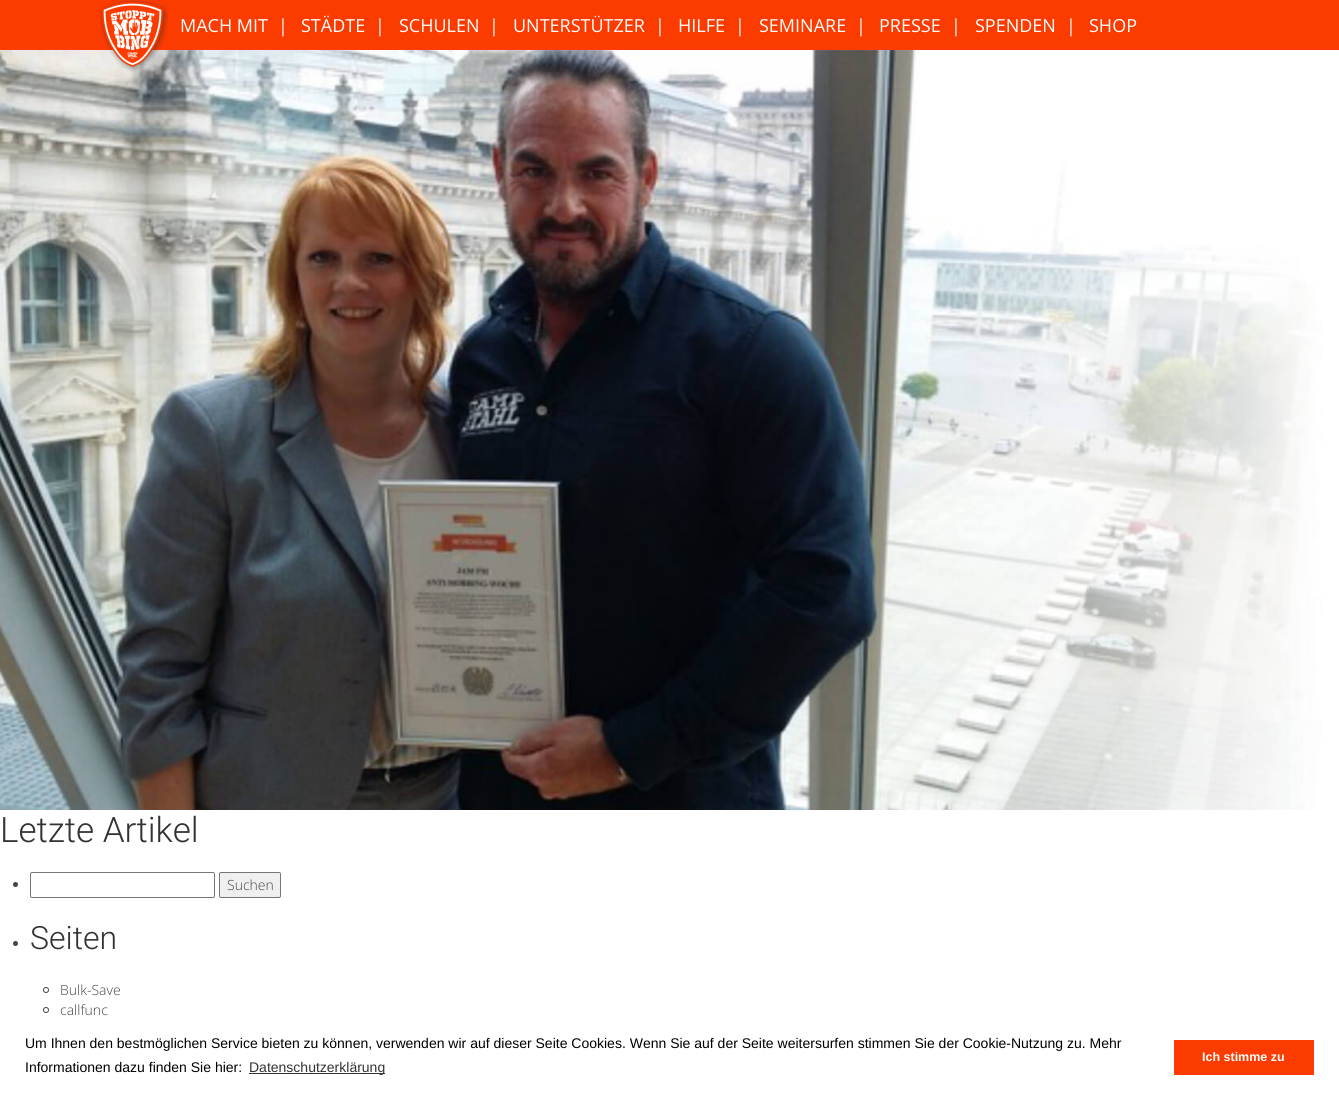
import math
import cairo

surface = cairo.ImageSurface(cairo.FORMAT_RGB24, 1339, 1095)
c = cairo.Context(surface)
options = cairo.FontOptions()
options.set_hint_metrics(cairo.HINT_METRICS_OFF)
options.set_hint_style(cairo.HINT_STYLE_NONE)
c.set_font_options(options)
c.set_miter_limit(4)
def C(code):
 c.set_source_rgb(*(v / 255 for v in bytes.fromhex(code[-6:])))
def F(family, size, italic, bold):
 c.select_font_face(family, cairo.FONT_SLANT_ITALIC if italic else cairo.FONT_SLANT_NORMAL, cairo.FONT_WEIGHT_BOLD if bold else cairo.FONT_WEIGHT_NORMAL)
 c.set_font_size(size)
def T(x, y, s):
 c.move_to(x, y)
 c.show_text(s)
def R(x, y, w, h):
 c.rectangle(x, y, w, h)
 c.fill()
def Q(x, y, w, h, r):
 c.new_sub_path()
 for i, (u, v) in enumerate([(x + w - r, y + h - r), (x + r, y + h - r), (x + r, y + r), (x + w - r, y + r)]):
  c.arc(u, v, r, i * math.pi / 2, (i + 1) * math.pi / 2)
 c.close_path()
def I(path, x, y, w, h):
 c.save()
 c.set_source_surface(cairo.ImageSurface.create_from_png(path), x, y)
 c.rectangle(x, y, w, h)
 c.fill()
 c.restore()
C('ffffff')
c.paint()
C('fc3b00')
R(0,0,1339,50)
I('2.png',0,50,1339,760)
I('1.png',100,0,68,72)
F('Open Sans',18,0,0)
C('ffffff')
T(180,32,'MACH MIT')
T(278,32,'|')
T(301,32,'STÄDTE')
T(375,32,'|')
T(399,32,'SCHULEN')
T(489,32,'|')
T(513,32,'UNTERSTÜTZER')
T(655,32,'|')
T(678,32,'HILFE')
T(735,32,'|')
T(759,32,'SEMINARE')
T(856,32,'|')
T(879,32,'PRESSE')
T(951,32,'|')
T(975,32,'SPENDEN')
T(1066,32,'|')
T(1089,32,'SHOP')
F('Roboto Light',35,0,0)
C('333333')
T(0,842,'Letzte Artikel')
C('444444')
c.new_path()
c.arc(15.5,884.5,2.5,0,2 * math.pi)
c.fill()
Q(30.5,872.5,184,25,1.5)
C('767676')
c.set_line_width(1)
c.stroke()
C('efefef')
Q(219.5,872.5,61,25,1.5)
c.fill_preserve()
C('767676')
c.stroke()
F('Open Sans Light',14,0,0)
C('444444')
T(227,890,'Suchen')
c.new_path()
c.arc(15.5,943.5,2.5,0,2 * math.pi)
c.fill()
F('Roboto Light',32,0,0)
C('333333')
T(30,949,'Seiten')
c.new_path()
c.arc(46,990,2.5,0,2 * math.pi)
C('444444')
c.stroke()
F('Open Sans Light',14,0,0)
T(60,995,'Bulk-Save')
c.new_path()
c.arc(46,1010,2.5,0,2 * math.pi)
c.stroke()
T(60,1015,'callfunc')
F('Liberation Sans',14,0,0)
C('000000')
T(25,1048,'Um Ihnen den bestmöglichen Service bieten zu können, verwenden wir auf dieser Seite Cookies. Wenn Sie auf der Seite weitersurfen stimmen Sie der Cookie-Nutzung zu. Mehr')
T(25,1072,'Informationen dazu finden Sie hier:')
C('333333')
R(249,1073,136,1)
T(249,1072,'Datenschutzerklärung')
C('fc3b00')
R(1174,1040,140,35)
F('Liberation Sans',12.5,0,1)
C('ffffff')
T(1202,1061,'Ich stimme zu')
surface.write_to_png('o.png')
